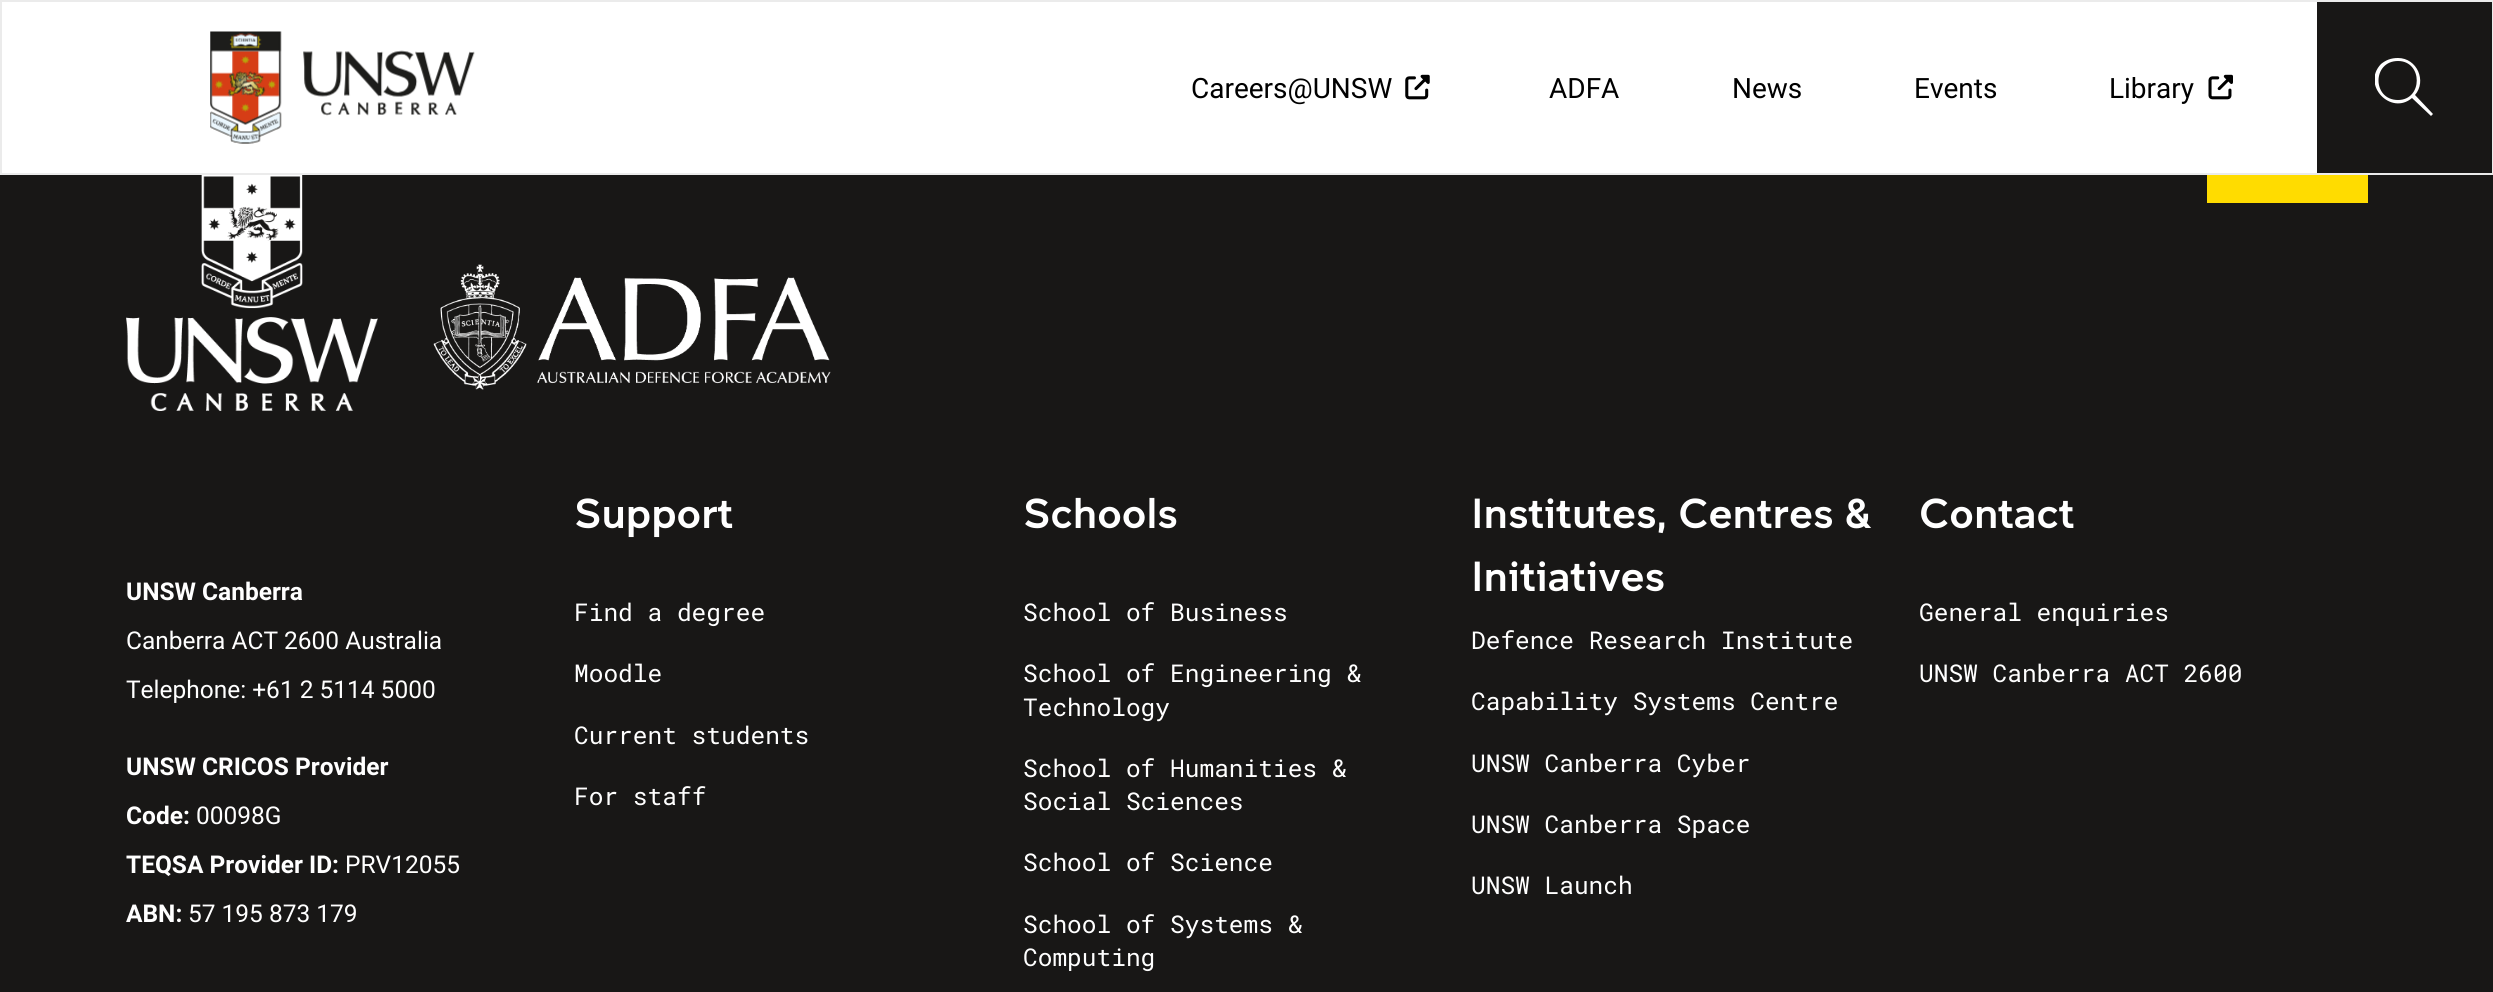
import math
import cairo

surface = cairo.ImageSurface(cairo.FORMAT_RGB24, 2493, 992)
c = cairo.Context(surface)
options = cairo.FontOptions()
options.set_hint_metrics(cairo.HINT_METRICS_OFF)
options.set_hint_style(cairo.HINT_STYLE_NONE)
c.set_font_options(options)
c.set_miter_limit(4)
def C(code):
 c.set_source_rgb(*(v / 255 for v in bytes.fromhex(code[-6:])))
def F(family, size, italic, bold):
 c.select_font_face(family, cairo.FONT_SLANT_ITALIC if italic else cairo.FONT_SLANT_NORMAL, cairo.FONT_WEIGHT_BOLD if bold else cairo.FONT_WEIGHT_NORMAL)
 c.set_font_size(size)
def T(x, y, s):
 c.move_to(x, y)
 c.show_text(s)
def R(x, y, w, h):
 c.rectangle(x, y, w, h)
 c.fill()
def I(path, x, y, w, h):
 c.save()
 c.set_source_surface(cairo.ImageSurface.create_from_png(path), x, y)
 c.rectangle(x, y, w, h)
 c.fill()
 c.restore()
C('181716')
c.paint()
C('ffffff')
R(2,2,2315,171)
c.rectangle(1,1,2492,173)
C('ebebeb')
c.stroke()
I('1.png',210,31,265,113)
F('Roboto',28,0,0)
C('000000')
T(1191,98,'Careers@UNSW')
I('2.png',1405,74,25,26)
T(1549,98,'ADFA')
T(1732,98,'News')
T(1914,98,'Events')
T(2109,98,'Library')
I('3.png',2208,74,25,26)
c.save()
c.rectangle(2375,58,59,59)
c.clip()
C('ffffff')
c.set_fill_rule(cairo.FILL_RULE_EVEN_ODD)
c.new_path()
c.move_to(2398,58)
c.curve_to(2417,58,2427,81,2415,95)
c.line_to(2433,114)
c.line_to(2431,116)
c.line_to(2412,98)
c.curve_to(2391,116,2361,85,2381,64)
c.curve_to(2386,60,2391,58,2398,58)
c.close_path()
c.move_to(2398,61)
c.curve_to(2372,61,2372,100,2398,100)
c.curve_to(2423,100,2423,61,2398,61)
c.close_path()
c.fill()
c.restore()
I('4.png',126,175,252,236)
I('5.png',433,264,398,126)
C('ffdc00')
R(2207,175,161,28)
F('Roboto',24.5,0,1)
C('ffffff')
T(126,600,'UNSW Canberra')
F('Roboto',24.5,0,0)
T(126,649,'Canberra ACT 2600 Australia')
T(126,698,'Telephone: +61 2 5114 5000')
F('Roboto',24.5,0,1)
T(126,775,'UNSW CRICOS Provider')
T(126,824,'Code:')
F('Roboto',24.5,0,0)
T(196,824,'00098G')
F('Roboto',24.5,0,1)
T(126,873,'TEQSA Provider ID:')
F('Roboto',24.5,0,0)
T(345,873,'PRV12055')
F('Roboto',24.5,0,1)
T(126,922,'ABN:')
F('Roboto',24.5,0,0)
T(188,922,'57 195 873 179')
F('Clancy',42,0,0)
T(574,528,'Support')
F('Roboto Mono',24.5,0,0)
T(574,621,'Find a degree')
T(574,682,'Moodle')
T(574,744,'Current students')
T(574,805,'For staff')
F('Clancy',42,0,0)
T(1023,528,'Schools')
F('Roboto Mono',24.5,0,0)
T(1023,621,'School of Business')
T(1023,682,'School of Engineering &')
T(1023,716,'Technology')
T(1023,777,'School of Humanities &')
T(1023,810,'Social Sciences')
T(1023,871,'School of Science')
T(1023,933,'School of Systems &')
T(1023,966,'Computing')
F('Clancy',42,0,0)
T(1471,528,'Institutes, Centres &')
T(1471,591,'Initiatives')
F('Roboto Mono',24.5,0,0)
T(1471,649,'Defence Research Institute')
T(1471,710,'Capability Systems Centre')
T(1471,772,'UNSW Canberra Cyber')
T(1471,833,'UNSW Canberra Space')
T(1471,894,'UNSW Launch')
F('Clancy',42,0,0)
T(1919,528,'Contact')
F('Roboto Mono',24.5,0,0)
T(1919,621,'General enquiries')
T(1919,682,'UNSW Canberra ACT 2600')
surface.write_to_png('o.png')
